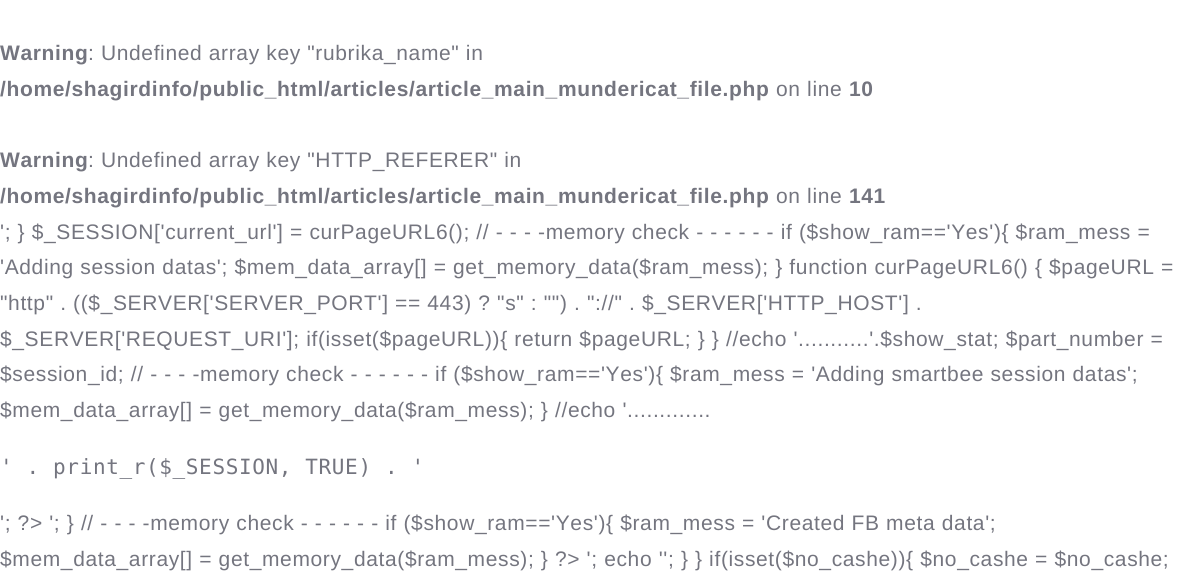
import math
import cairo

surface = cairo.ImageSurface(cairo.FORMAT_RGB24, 1181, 584)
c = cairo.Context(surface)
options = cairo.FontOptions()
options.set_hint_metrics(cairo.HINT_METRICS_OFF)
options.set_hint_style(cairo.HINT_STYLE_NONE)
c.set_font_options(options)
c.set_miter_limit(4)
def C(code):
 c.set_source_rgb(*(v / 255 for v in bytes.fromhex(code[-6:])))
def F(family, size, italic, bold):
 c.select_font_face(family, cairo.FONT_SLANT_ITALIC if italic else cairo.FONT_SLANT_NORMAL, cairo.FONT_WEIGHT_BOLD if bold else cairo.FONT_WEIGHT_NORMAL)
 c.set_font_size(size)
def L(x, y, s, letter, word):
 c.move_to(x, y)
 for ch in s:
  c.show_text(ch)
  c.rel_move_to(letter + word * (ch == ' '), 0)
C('ffffff')
c.paint()
F('Liberation Sans',21,0,1)
C('74757f')
L(0,60,'Warning',.63,0)
F('Liberation Sans',21,0,0)
L(88,60,': Undefined array key "rubrika_name" in',.63,0)
F('Liberation Sans',21,0,1)
L(0,96,'/home/shagirdinfo/public_html/articles/article_main_mundericat_file.php',.63,0)
F('Liberation Sans',21,0,0)
L(776,96,'on line',.63,0)
F('Liberation Sans',21,0,1)
L(849,96,'10',.63,0)
L(0,167,'Warning',.63,0)
F('Liberation Sans',21,0,0)
L(88,167,': Undefined array key "HTTP_REFERER" in',.63,0)
F('Liberation Sans',21,0,1)
L(0,203,'/home/shagirdinfo/public_html/articles/article_main_mundericat_file.php',.63,0)
F('Liberation Sans',21,0,0)
L(776,203,'on line',.63,0)
F('Liberation Sans',21,0,1)
L(849,203,'141',.63,0)
F('Liberation Sans',21,0,0)
L(0,239,'\'; } $_SESSION[\'current_url\'] = curPageURL6(); // - - - -memory check - - - - - - if ($show_ram==\'Yes\'){ $ram_mess =',.63,0)
L(0,274,'\'Adding session datas\'; $mem_data_array[] = get_memory_data($ram_mess); } function curPageURL6() { $pageURL =',.63,0)
L(0,310,'"http" . (($_SERVER[\'SERVER_PORT\'] == 443) ? "s" : "") . "://" . $_SERVER[\'HTTP_HOST\'] .',.63,0)
L(0,346,'$_SERVER[\'REQUEST_URI\']; if(isset($pageURL)){ return $pageURL; } } //echo \'...........\'.$show_stat; $part_number =',.63,0)
L(0,381,'$session_id; // - - - -memory check - - - - - - if ($show_ram==\'Yes\'){ $ram_mess = \'Adding smartbee session datas\';',.63,0)
L(0,417,'$mem_data_array[] = get_memory_data($ram_mess); } //echo \'.............',.63,0)
F('DejaVu Sans Mono',21,0,0)
L(0,474,'\' . print_r($_SESSION, TRUE) . \'',.63,0)
F('Liberation Sans',21,0,0)
L(0,530,'\'; ?> \'; } // - - - -memory check - - - - - - if ($show_ram==\'Yes\'){ $ram_mess = \'Created FB meta data\';',.63,0)
L(0,566,'$mem_data_array[] = get_memory_data($ram_mess); } ?> \'; echo \'\'; } } if(isset($no_cashe)){ $no_cashe = $no_cashe;',.63,0)
surface.write_to_png('o.png')
